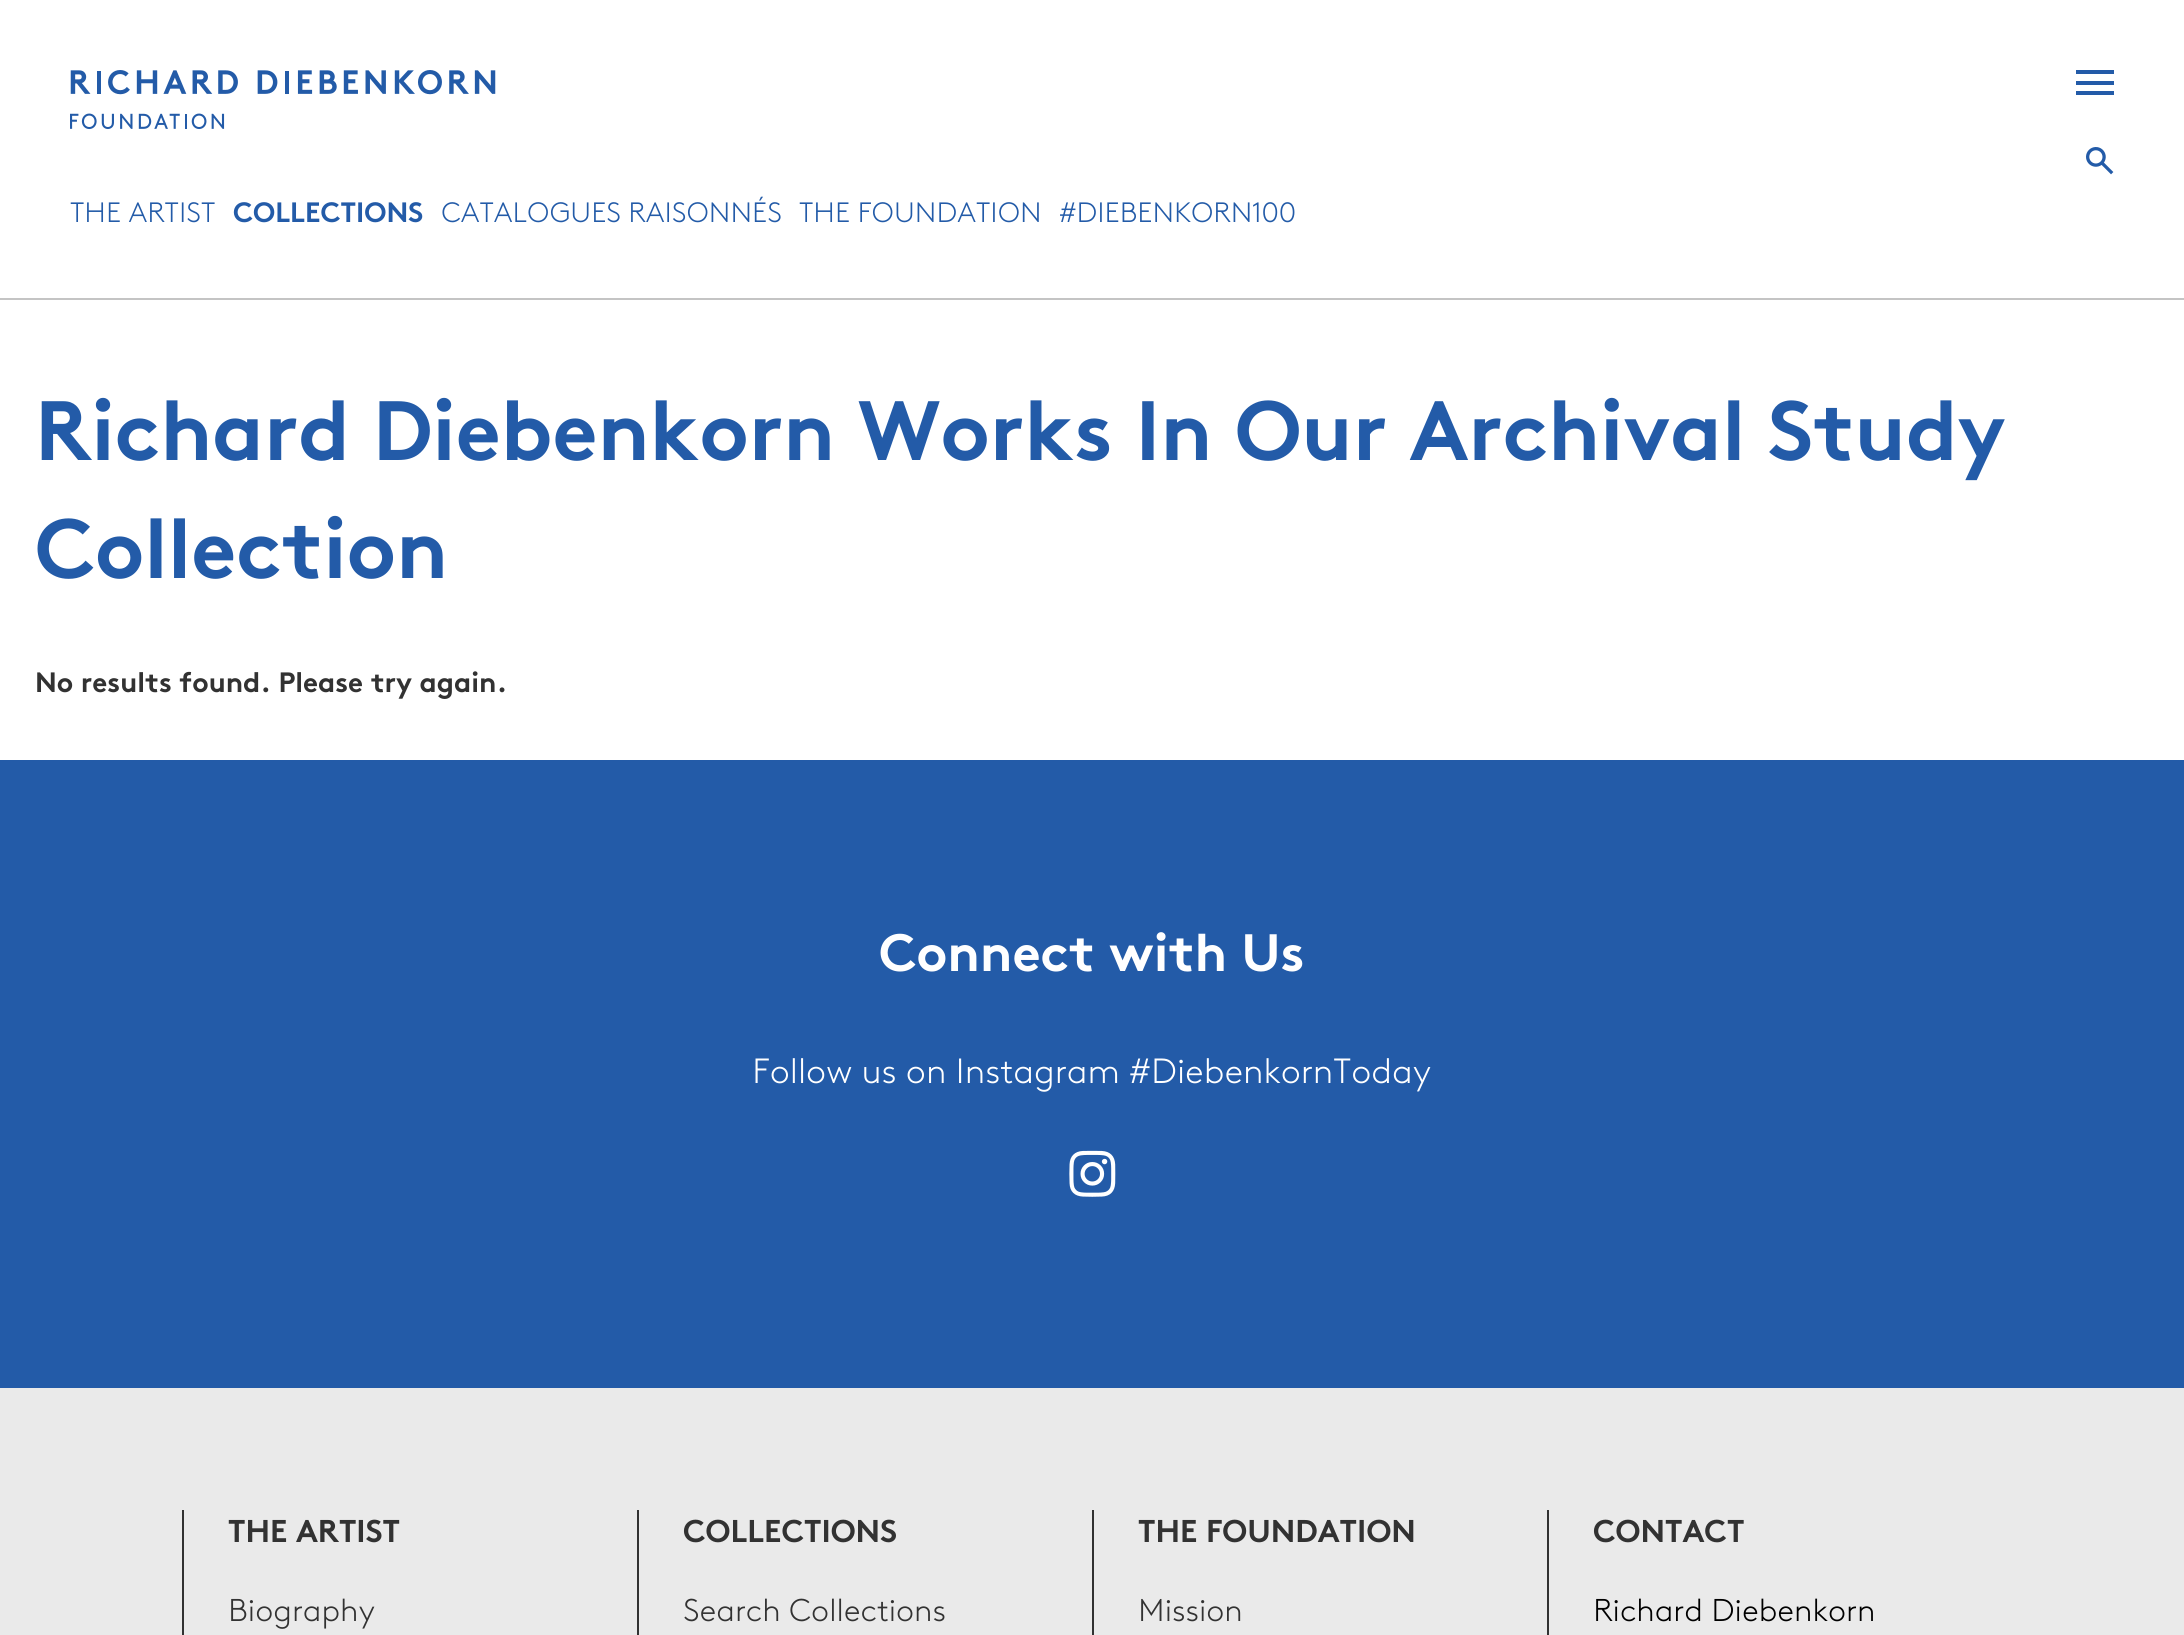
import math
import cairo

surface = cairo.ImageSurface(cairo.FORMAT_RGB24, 2184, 1635)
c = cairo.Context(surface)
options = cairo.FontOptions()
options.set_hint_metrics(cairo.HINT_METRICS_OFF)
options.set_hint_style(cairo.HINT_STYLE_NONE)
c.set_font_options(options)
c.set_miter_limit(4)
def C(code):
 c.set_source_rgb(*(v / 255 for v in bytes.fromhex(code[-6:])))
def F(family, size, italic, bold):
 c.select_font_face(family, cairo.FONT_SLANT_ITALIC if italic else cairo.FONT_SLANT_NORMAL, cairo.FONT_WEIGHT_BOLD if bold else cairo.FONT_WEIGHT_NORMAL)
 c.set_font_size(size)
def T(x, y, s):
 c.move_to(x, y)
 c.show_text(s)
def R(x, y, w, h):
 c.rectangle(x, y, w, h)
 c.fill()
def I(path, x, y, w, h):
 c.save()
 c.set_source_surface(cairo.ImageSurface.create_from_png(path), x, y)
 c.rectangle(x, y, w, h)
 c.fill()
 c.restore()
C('ffffff')
c.paint()
C('235ba8')
R(2076,70,38,4)
R(2076,81,38,4)
R(2076,91,38,4)
I('1.png',2086,147,28,28)
C('c4c4c4')
R(0,298,2184,2)
I('2.png',70,70,426,60)
F('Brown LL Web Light',28,0,0)
C('235ba8')
T(70,222,'THE ARTIST')
F('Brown',28,0,1)
T(233,222,'COLLECTIONS')
F('Brown LL Web Light',28,0,0)
T(441,222,'CATALOGUES RAISONNÉS')
T(799,222,'THE FOUNDATION')
T(1059,222,'#DIEBENKORN100')
F('Brown',84,0,1)
T(35,460,'Richard Diebenkorn Works In Our Archival Study')
T(35,578,'Collection')
F('Brown',28,0,1)
C('323232')
T(35,692,'No results found. Please try again.')
C('235ba8')
R(0,760,2184,628)
F('Brown',52.5,0,1)
C('ffffff')
T(879,971,'Connect with Us')
F('Brown LL Web Light',35,0,0)
T(752,1083,'Follow us on Instagram #DiebenkornToday')
I('3.png',1069,1150,47,47)
C('eaeaea')
R(0,1388,2184,247)
C('323232')
R(182,1510,2,125)
F('Brown',31.5,0,1)
T(228,1542,'THE ARTIST')
F('Brown LL Web Light',31.5,0,0)
T(228,1621,'Biography')
R(637,1510,2,125)
F('Brown',31.5,0,1)
T(683,1542,'COLLECTIONS')
F('Brown LL Web Light',31.5,0,0)
T(683,1621,'Search Collections')
R(1092,1510,2,125)
F('Brown',31.5,0,1)
T(1138,1542,'THE FOUNDATION')
F('Brown LL Web Light',31.5,0,0)
T(1138,1621,'Mission')
R(1547,1510,2,125)
F('Brown',31.5,0,1)
T(1593,1542,'CONTACT')
F('Brown LL Web Light',31.5,0,0)
C('000000')
T(1593,1621,'Richard Diebenkorn')
surface.write_to_png('o.png')
